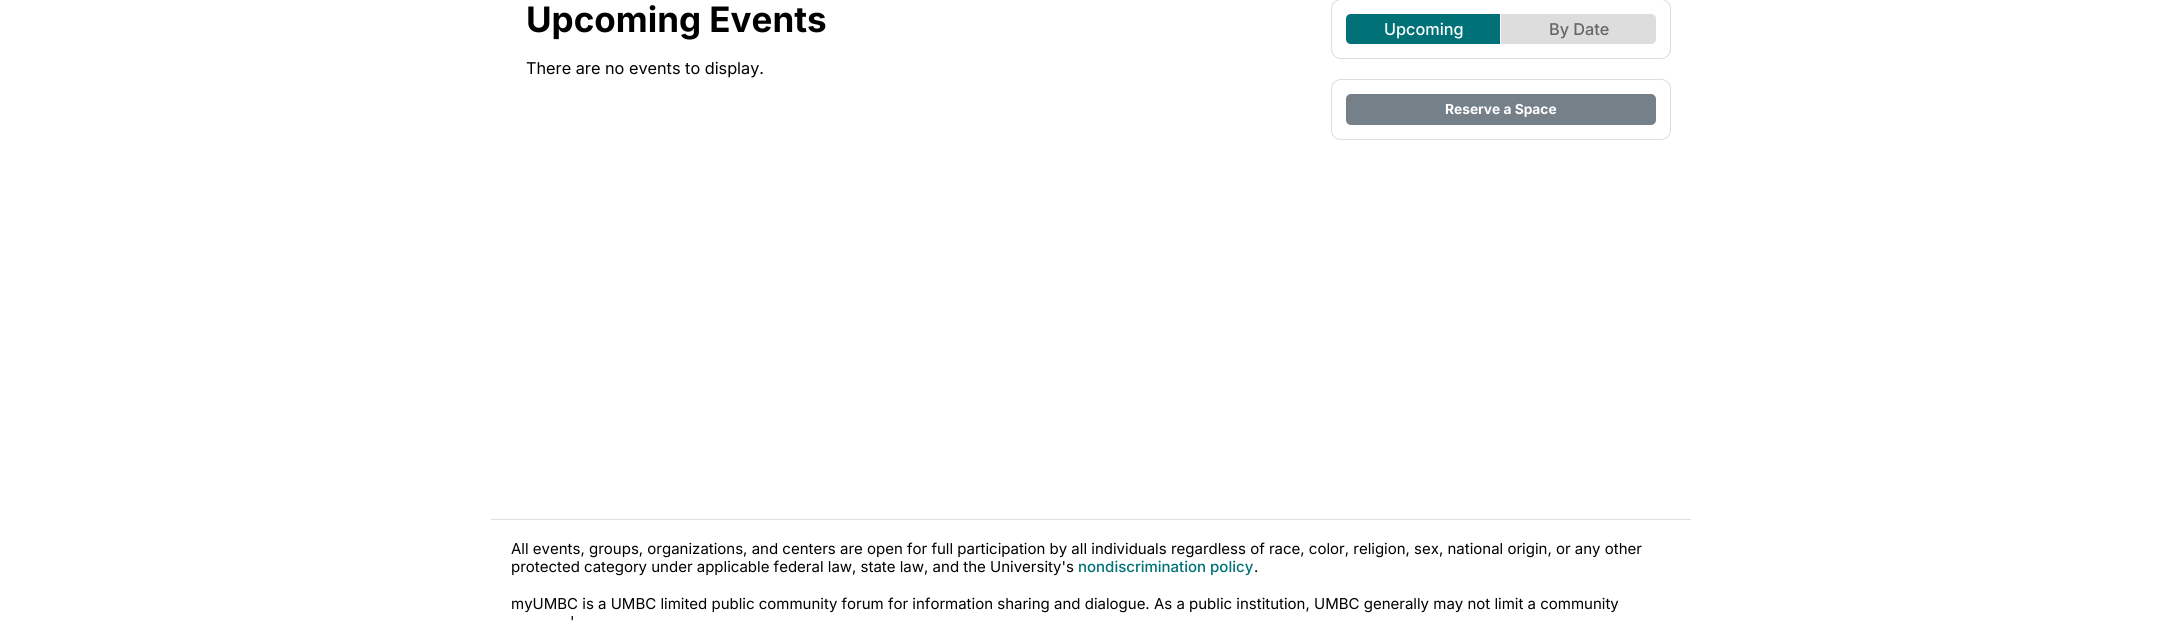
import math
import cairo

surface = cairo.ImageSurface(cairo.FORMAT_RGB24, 2182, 621)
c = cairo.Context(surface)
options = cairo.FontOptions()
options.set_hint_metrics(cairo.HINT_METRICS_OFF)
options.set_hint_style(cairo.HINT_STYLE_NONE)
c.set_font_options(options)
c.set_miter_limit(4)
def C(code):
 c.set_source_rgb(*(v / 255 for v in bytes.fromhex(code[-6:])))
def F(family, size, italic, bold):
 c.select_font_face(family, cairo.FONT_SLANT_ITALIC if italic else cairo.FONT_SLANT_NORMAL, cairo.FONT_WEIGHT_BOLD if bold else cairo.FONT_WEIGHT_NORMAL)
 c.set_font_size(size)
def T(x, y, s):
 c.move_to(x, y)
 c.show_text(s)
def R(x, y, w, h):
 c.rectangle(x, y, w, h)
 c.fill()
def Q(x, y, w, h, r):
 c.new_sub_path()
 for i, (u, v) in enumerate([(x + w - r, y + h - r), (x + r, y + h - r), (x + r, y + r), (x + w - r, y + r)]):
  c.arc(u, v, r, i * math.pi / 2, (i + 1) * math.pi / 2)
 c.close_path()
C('ffffff')
c.paint()
F('Inter',35,0,1)
C('000000')
T(526,32,'Upcoming Events')
F('Inter',16.25,0,0)
T(526,74,'There are no events to display.')
Q(1331.5,-.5,339,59,9.5)
C('dddddd')
c.set_line_width(1)
c.stroke()
C('007176')
c.new_path()
c.move_to(1351,14)
c.line_to(1501,14)
c.line_to(1501,44)
c.line_to(1351,44)
c.curve_to(1348,44,1346,42,1346,39)
c.line_to(1346,19)
c.curve_to(1346,16,1348,14,1351,14)
c.close_path()
c.fill()
F('Inter Medium',16.25,0,0)
C('ffffff')
T(1384,35,'Upcoming')
R(1500,14,1,30)
C('dddddd')
c.new_path()
c.move_to(1501,14)
c.line_to(1651,14)
c.curve_to(1654,14,1656,16,1656,19)
c.line_to(1656,39)
c.curve_to(1656,42,1654,44,1651,44)
c.line_to(1501,44)
c.close_path()
c.fill()
C('666666')
T(1549,35,'By Date')
Q(1331.5,79.5,339,60,9.5)
C('dddddd')
c.stroke()
C('768089')
Q(1346,94,310,31,5)
c.fill()
F('Inter',13.75,0,1)
C('ffffff')
T(1445,114,'Reserve a Space')
C('e0e0e0')
R(491,519,1200,1)
F('Inter',15,0,0)
C('000000')
T(511,554,'All events, groups, organizations, and centers are open for full participation by all individuals regardless of race, color, religion, sex, national origin, or any other')
T(511,572,'protected category under applicable federal law, state law, and the University\'s')
F('Inter Medium',15,0,0)
C('007176')
T(1078,572,'nondiscrimination policy')
F('Inter',15,0,0)
C('000000')
T(1254,572,'.')
T(511,609,'myUMBC is a UMBC limited public community forum for information sharing and dialogue. As a public institution, UMBC generally may not limit a community')
T(570,627,'\'')
surface.write_to_png('o.png')
